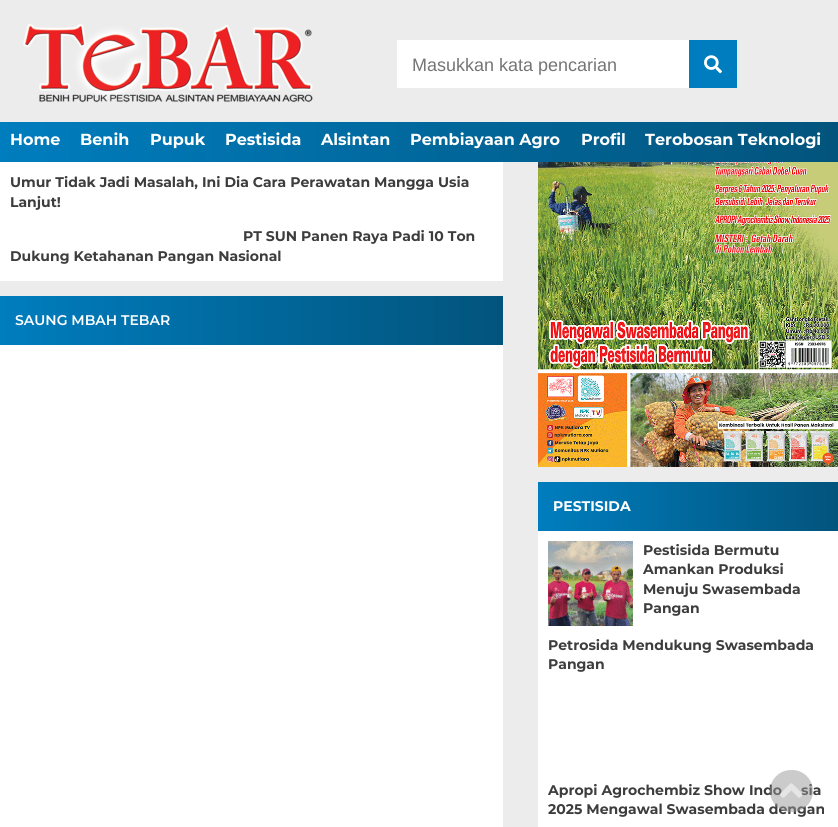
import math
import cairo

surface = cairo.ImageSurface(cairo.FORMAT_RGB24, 838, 827)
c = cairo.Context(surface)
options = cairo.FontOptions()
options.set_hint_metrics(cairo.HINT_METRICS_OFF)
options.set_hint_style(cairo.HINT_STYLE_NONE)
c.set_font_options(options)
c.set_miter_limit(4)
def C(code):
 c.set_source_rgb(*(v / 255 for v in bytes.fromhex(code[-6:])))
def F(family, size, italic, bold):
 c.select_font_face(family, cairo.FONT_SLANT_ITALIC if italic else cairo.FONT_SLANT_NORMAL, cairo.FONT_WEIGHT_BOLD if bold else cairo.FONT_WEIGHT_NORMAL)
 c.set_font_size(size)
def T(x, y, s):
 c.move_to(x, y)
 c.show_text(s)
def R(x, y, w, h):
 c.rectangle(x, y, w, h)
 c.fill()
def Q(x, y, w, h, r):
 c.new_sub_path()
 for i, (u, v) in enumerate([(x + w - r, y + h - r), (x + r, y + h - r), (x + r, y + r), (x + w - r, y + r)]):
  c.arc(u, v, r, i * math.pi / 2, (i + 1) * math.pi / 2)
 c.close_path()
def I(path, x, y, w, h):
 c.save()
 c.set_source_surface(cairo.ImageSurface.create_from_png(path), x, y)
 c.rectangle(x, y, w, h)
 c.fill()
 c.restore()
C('ececec')
c.paint()
I('1.png',23,24,290,79)
C('ffffff')
R(397,40,292,48)
F('Liberation Sans',18,0,0)
C('757575')
T(412,71,'Masukkan kata pencarian')
C('007dbe')
R(689,40,48,48)
I('2.png',704,55,18,19)
gradient = cairo.LinearGradient(0,142,838,142)
gradient.add_color_stop_rgba(0,0,0.49,0.745,1)
gradient.add_color_stop_rgba(1,0.008,0.329,0.486,1)
c.set_source(gradient)
R(0,122,838,40)
F('Montserrat',16,0,1)
C('ffffff')
T(10,145,'Home')
T(80,145,'Benih')
T(150,145,'Pupuk')
T(225,145,'Pestisida')
T(321,145,'Alsintan')
T(410,145,'Pembiayaan Agro')
T(581,145,'Profil')
T(645,145,'Terobosan Teknologi')
R(0,162,503,119)
F('Montserrat',14,0,1)
C('3d3d3d')
T(10,187,'Umur Tidak Jadi Masalah, Ini Dia Cara Perawatan Mangga Usia')
T(10,207,'Lanjut!')
T(243,241,'PT SUN Panen Raya Padi 10 Ton')
T(10,261,'Dukung Ketahanan Pangan Nasional')
C('ffffff')
R(0,345,503,482)
gradient = cairo.LinearGradient(0,321,503,321)
gradient.add_color_stop_rgba(0,0,0.49,0.745,1)
gradient.add_color_stop_rgba(1,0.008,0.329,0.486,1)
c.set_source(gradient)
R(0,296,503,49)
F('Montserrat SemiBold',14,0,0)
C('ffffff')
T(15,325,'SAUNG MBAH TEBAR')
I('3.png',538,162,300,305)
R(538,531,300,296)
gradient = cairo.LinearGradient(538,507,838,507)
gradient.add_color_stop_rgba(0,0,0.49,0.745,1)
gradient.add_color_stop_rgba(1,0.008,0.329,0.486,1)
c.set_source(gradient)
R(538,482,300,49)
F('Montserrat',14,0,1)
C('ffffff')
T(553,511,'PESTISIDA')
I('4.png',548,541,85,85)
C('3d3d3d')
T(643,555,'Pestisida Bermutu')
T(643,574,'Amankan Produksi')
T(643,594,'Menuju Swasembada')
T(643,613,'Pangan')
T(548,650,'Petrosida Mendukung Swasembada')
T(548,669,'Pangan')
T(548,795,'Apropi Agrochembiz Show Indo')
T(801,795,'sia')
T(548,814,'2025 Mengawal Swasembada dengan')
c.set_source_rgba(0.6,0.6,0.6,0.5)
Q(770,770,43,42,21)
c.fill()
I('5.png',780,783,23,15)
surface.write_to_png('o.png')
